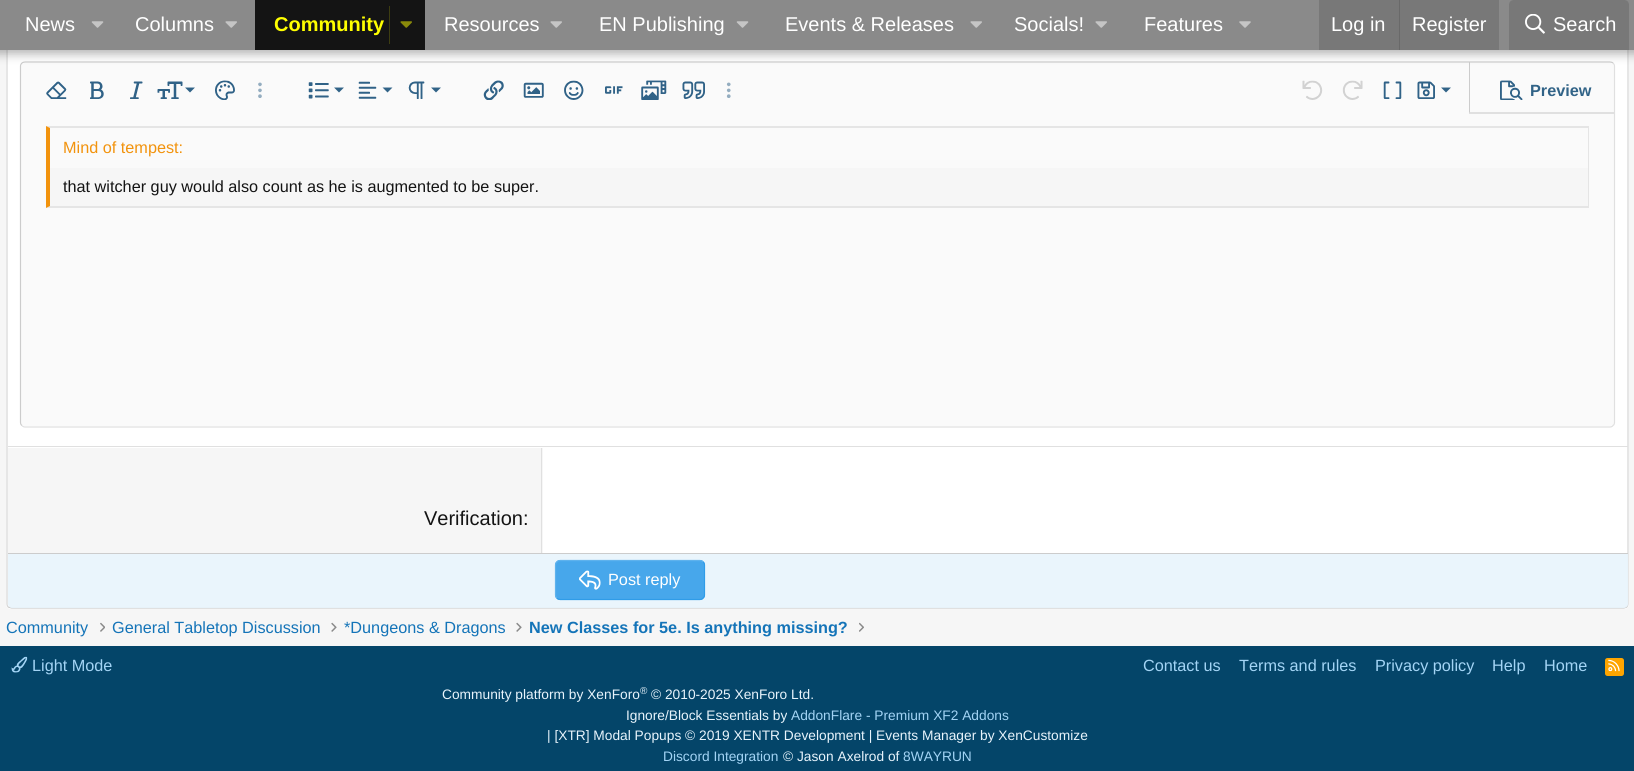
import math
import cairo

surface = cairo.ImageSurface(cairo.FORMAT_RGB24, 1634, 771)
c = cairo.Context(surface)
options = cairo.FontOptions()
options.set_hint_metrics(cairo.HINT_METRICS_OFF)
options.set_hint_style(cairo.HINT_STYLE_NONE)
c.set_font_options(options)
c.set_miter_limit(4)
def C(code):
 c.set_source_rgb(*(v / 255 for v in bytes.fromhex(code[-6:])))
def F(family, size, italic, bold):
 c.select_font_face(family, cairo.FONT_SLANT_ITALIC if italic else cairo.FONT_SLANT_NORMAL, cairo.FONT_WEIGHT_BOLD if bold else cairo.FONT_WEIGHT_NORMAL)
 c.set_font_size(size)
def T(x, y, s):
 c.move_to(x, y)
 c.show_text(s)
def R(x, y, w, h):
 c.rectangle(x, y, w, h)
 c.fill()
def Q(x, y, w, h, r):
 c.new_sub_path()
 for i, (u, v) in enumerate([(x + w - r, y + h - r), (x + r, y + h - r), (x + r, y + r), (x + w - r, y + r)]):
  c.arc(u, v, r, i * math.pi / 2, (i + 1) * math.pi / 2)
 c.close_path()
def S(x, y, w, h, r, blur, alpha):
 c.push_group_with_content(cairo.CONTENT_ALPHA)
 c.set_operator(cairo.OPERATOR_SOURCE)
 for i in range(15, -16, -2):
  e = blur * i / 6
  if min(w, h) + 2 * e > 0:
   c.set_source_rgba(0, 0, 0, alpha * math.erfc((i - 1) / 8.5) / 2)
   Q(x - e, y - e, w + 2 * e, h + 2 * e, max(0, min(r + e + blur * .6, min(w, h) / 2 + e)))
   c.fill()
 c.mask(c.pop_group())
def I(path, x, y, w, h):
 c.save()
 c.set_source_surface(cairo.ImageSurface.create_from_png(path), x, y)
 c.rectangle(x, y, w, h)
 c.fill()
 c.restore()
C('f6f6f6')
c.paint()
C('ffffff')
Q(6,41,1623,568,5)
c.fill()
c.new_path()
c.move_to(1627,43)
c.curve_to(1627.5,44,1628,45,1628,46)
c.line_to(1628,604)
c.curve_to(1628,605,1627.5,606,1627,607)
C('d6d6d6')
c.set_line_width(1.2)
c.stroke()
c.new_path()
c.move_to(1627,607)
c.line_to(1624,608)
c.line_to(11.5,608)
c.line_to(8,607)
C('cccccc')
c.stroke()
c.new_path()
c.move_to(8,607)
c.curve_to(7.5,606,7,605,7,604)
c.line_to(7,46)
c.curve_to(7,45,7.5,44,8,43)
C('d6d6d6')
c.stroke()
C('fafafa')
Q(21,63,1593,363,4)
c.fill()
c.new_path()
c.move_to(1613,63)
c.curve_to(1614,64,1614.5,65,1614.5,66)
c.line_to(1614.5,422.5)
c.curve_to(1614.5,423.5,1614,425,1613,425.5)
c.curve_to(1612.5,426.5,1611,427,1610,427)
c.line_to(25,427)
c.curve_to(24,427,22.5,426.5,22,425.5)
C('e0e0e0')
c.stroke()
c.new_path()
c.move_to(22,425.5)
c.curve_to(21,425,20.5,423.5,20.5,422.5)
c.line_to(20.5,66)
c.curve_to(20.5,65,21,64,22,63)
c.curve_to(22.5,62.5,24,62,25,62)
c.line_to(1610,62)
c.curve_to(1611,62,1612.5,62.5,1613,63)
C('cccccc')
c.stroke()
C('e0e0e0')
c.new_path()
c.move_to(1614,114)
c.line_to(1469,114)
c.line_to(1470,112)
c.line_to(1614,112)
c.close_path()
c.fill()
C('cccccc')
c.new_path()
c.move_to(1469,114)
c.line_to(1469,62)
c.line_to(1470,62)
c.line_to(1470,112)
c.close_path()
c.fill()
C('000000')
S(-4,-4,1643,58,0,5,.3)
C('8a8a8a')
R(0,0,1634,50)
F('Liberation Sans',20,0,0)
C('ffffff')
T(25,31,'News')
I('1.png',91,21,13,7)
T(135,31,'Columns')
I('2.png',225,21,12,7)
C('141414')
R(255,0,170,50)
F('Liberation Sans',20,0,1)
C('ffff00')
T(274,31,'Community')
C('3d3d11')
R(389,6,1,38)
I('3.png',400,21,12,7)
F('Liberation Sans',20,0,0)
C('ffffff')
T(444,31,'Resources')
I('2.png',550,21,12,7)
T(599,31,'EN Publishing')
I('1.png',736,21,13,7)
T(785,31,'Events & Releases')
I('2.png',970,21,12,7)
T(1014,31,'Socials!')
I('2.png',1095,21,12,7)
T(1144,31,'Features')
I('4.png',1239,21,12,7)
C('787878')
R(1319,0,180,50)
C('ffffff')
T(1331,31,'Log in')
C('696969')
R(1399,0,1,50)
C('ffffff')
T(1412,31,'Register')
C('787878')
c.new_path()
c.move_to(1514,0)
c.line_to(1624,0)
c.curve_to(1627,0,1629,2,1629,5)
c.line_to(1629,50)
c.line_to(1509,50)
c.line_to(1509,5)
c.curve_to(1509,2,1511,0,1514,0)
c.close_path()
c.fill()
I('5.png',1525,14,20,20)
C('ffffff')
T(1553,31,'Search')
I('6.png',46,81,21,18)
I('7.png',90,81,14,18)
I('8.png',130,81,13,18)
I('9.png',157,81,26,18)
C('316387')
c.new_path()
c.move_to(185,87.5)
c.line_to(195,87.5)
c.line_to(190,92.5)
c.close_path()
c.fill()
I('10.png',215,80,20,20)
I('11.png',258,82,4,16)
I('12.png',308,82,21,17)
c.new_path()
c.move_to(334,87.5)
c.line_to(344,87.5)
c.line_to(339,92.5)
c.close_path()
c.fill()
I('13.png',358,81,19,18)
c.new_path()
c.move_to(382.5,87.5)
c.line_to(392.5,87.5)
c.line_to(387.5,92.5)
c.close_path()
c.fill()
I('14.png',408,81,17,18)
c.new_path()
c.move_to(431,87.5)
c.line_to(441,87.5)
c.line_to(436,92.5)
c.close_path()
c.fill()
I('15.png',483,80,21,20)
I('16.png',523,82,21,16)
I('17.png',564,80,20,20)
I('18.png',605,86,18,8)
I('19.png',641,80,26,20)
I('20.png',682,81,23,18)
I('21.png',726,82,5,16)
I('22.png',1302,80,21,20)
I('23.png',1342,80,21,20)
I('24.png',1383,81,19,18)
I('25.png',1417,81,18,18)
c.new_path()
c.move_to(1441,87.5)
c.line_to(1451,87.5)
c.line_to(1446,92.5)
c.close_path()
c.fill()
I('26.png',1500,80,23,20)
F('Liberation Sans',16.25,0,1)
T(1530,96,'Preview')
C('f6f6f6')
R(50,168,1538,38)
C('e5e5e5')
c.new_path()
c.move_to(46,126)
c.line_to(1589,126)
c.line_to(1588,128)
c.line_to(50,128)
c.close_path()
c.fill()
R(1588,126,1,82)
c.new_path()
c.move_to(1589,208)
c.line_to(46,208)
c.line_to(50,206)
c.line_to(1588,206)
c.close_path()
c.fill()
C('f2930d')
c.new_path()
c.move_to(46,208)
c.line_to(46,126)
c.line_to(50,128)
c.line_to(50,206)
c.close_path()
c.fill()
F('Liberation Sans',16.25,0,0)
T(63,153,'Mind of tempest:')
C('141414')
T(63,192,'that witcher guy would also count as he is augmented to be super.')
C('e0e0e0')
R(8,446,1620,1)
C('f6f6f6')
R(8,448,535,105)
C('e0e0e0')
R(541,448,1,105)
F('Liberation Sans',20,0,0)
C('141414')
T(424,525,'Verification:')
c.set_source_rgba(0.91,0.957,0.988,0.9)
c.new_path()
c.move_to(8,553)
c.line_to(1628,553)
c.line_to(1628,604)
c.curve_to(1628,606,1626,608,1624,608)
c.line_to(12,608)
c.curve_to(10,608,8,606,8,604)
c.close_path()
c.fill()
C('cccccc')
R(8,553,1620,1)
C('47a7eb')
Q(555,560,150,40,5)
c.fill()
c.new_path()
c.move_to(703,562)
c.curve_to(704,562.5,704.5,564,704.5,565)
c.line_to(704.5,595)
c.curve_to(704.5,596,704,597.5,703,598)
c.curve_to(702.5,599,701,599.5,700,599.5)
c.line_to(560,599.5)
c.curve_to(559,599.5,557.5,599,557,598)
C('309ce8')
c.stroke()
c.new_path()
c.move_to(557,598)
c.curve_to(556,597.5,555.5,596,555.5,595)
c.line_to(555.5,565)
c.curve_to(555.5,564,556,562.5,557,562)
c.curve_to(557.5,561,559,560.5,560,560.5)
c.line_to(700,560.5)
c.curve_to(701,560.5,702.5,561,703,562)
C('5eb2ed')
c.stroke()
I('27.png',579,570,22,20)
F('Liberation Sans',16.25,0,0)
C('ffffff')
T(608,585,'Post reply')
C('1474b8')
T(6,633,'Community')
I('28.png',100,622,5,10)
T(112,633,'General Tabletop Discussion')
I('29.png',331,622,6,10)
T(344,633,'*Dungeons & Dragons')
I('29.png',516,622,6,10)
F('Liberation Sans',16.25,0,1)
T(529,633,'New Classes for 5e. Is anything missing?')
I('30.png',859,622,5,10)
C('044569')
R(0,646,1634,125)
I('31.png',11,656,17,17)
F('Liberation Sans',16.25,0,0)
C('a3d4f5')
T(32,671,'Light Mode')
T(1143,671,'Contact us')
T(1239,671,'Terms and rules')
T(1375,671,'Privacy policy')
T(1492,671,'Help')
T(1544,671,'Home')
C('ffa500')
Q(1605,658,19,18,2.5)
c.fill()
I('32.png',1608,659,12,13)
F('Liberation Sans',13.75,0,0)
C('e8f4fc')
T(442,699,'Community platform by XenForo')
F('Liberation Sans',10,0,0)
T(640,694,'®')
F('Liberation Sans',13.75,0,0)
T(651,699,'© 2010-2025 XenForo Ltd.')
T(626,720,'Ignore/Block Essentials by')
C('a3d4f5')
T(791,720,'AddonFlare - Premium XF2 Addons')
C('e8f4fc')
T(547,740,'| [XTR] Modal Popups © 2019 XENTR Development | Events Manager by XenCustomize')
C('a3d4f5')
T(663,761,'Discord Integration')
C('e8f4fc')
T(783,761,'© Jason Axelrod of')
C('a3d4f5')
T(903,761,'8WAYRUN')
surface.write_to_png('o.png')
